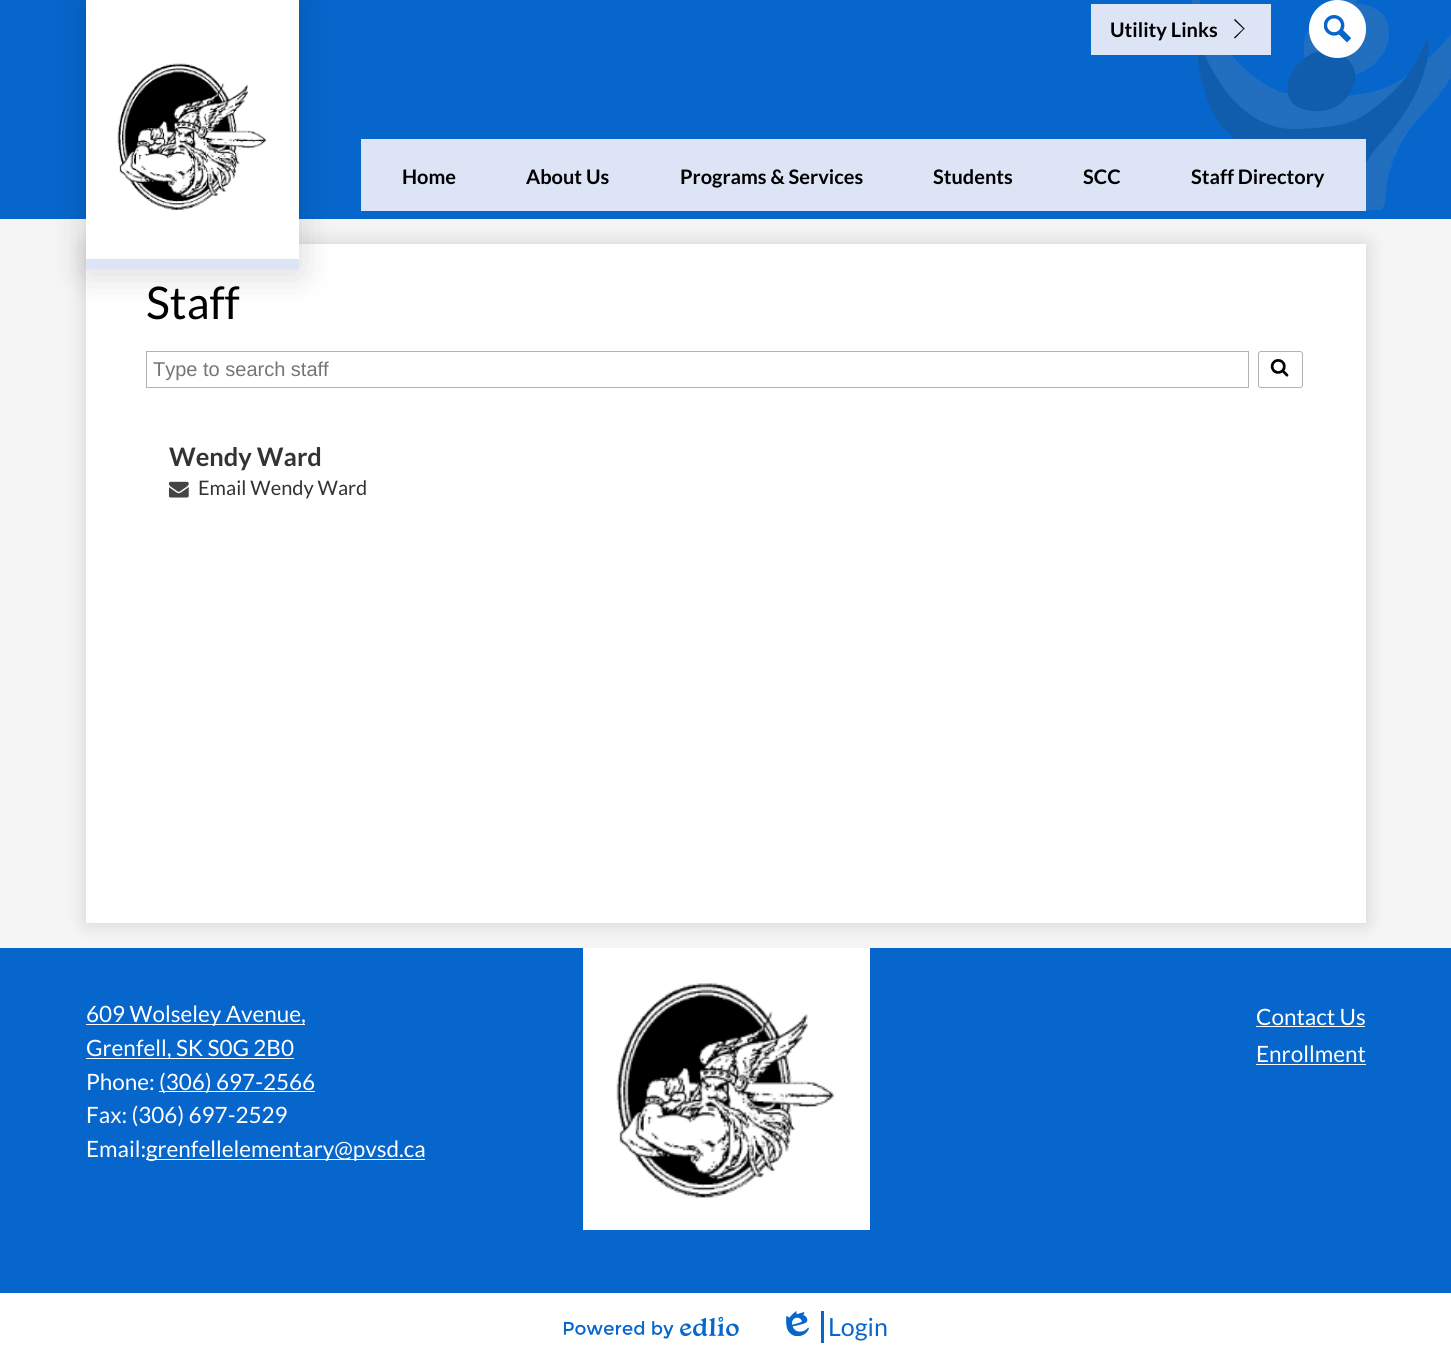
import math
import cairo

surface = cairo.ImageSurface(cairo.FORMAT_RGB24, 1451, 1361)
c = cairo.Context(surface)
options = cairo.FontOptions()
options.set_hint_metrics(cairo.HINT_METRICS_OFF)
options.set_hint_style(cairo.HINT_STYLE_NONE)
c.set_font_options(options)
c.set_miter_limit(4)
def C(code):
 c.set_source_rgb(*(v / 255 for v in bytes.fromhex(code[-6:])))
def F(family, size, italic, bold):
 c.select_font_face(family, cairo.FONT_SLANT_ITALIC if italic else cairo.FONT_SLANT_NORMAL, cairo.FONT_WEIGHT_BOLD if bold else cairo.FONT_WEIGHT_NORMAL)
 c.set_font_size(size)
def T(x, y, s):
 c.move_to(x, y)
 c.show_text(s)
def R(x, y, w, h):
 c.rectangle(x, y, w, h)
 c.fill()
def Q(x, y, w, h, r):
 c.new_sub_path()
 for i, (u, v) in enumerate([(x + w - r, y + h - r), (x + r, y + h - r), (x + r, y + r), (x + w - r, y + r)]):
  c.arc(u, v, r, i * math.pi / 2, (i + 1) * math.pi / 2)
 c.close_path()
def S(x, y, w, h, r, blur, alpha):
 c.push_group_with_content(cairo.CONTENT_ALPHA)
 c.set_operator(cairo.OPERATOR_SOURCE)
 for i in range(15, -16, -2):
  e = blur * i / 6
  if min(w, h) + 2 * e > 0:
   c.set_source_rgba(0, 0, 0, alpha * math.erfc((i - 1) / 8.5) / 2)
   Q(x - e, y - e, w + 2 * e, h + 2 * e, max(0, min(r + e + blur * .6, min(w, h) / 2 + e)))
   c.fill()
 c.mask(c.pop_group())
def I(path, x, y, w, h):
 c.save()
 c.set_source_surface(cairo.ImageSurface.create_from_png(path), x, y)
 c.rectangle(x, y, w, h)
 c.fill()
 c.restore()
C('f5f5f5')
c.paint()
C('000000')
S(86,244,1280,679,0,10,.15)
C('0666cc')
R(0,0,1451,219)
I('1.png',1192,0,259,210)
C('dde4f5')
R(1091,4,180,51)
F('Lato',20,0,1)
C('000000')
T(1110,37,'Utility Links')
c.new_path()
c.move_to(1234,20)
c.line_to(1235,19)
c.line_to(1244.5,28.5)
c.line_to(1244,29.5)
c.close_path()
c.fill()
c.new_path()
c.move_to(1234,37.5)
c.line_to(1244,28)
c.line_to(1244.5,28.5)
c.line_to(1235,38.5)
c.close_path()
c.fill()
C('ffffff')
Q(1309,0,57,58,28.5)
c.fill()
I('2.png',1324,15,27,28)
R(86,244,1280,679)
C('000000')
S(86,4,213,269,0,19,.16)
C('ffffff')
R(86,0,213,259)
C('dde4f5')
R(86,259,213,10)
I('3.png',117,63,150,147)
R(361,139,1005,72)
C('000000')
T(402,184,'Home')
T(526,184,'About Us')
T(680,184,'Programs & Services')
T(933,184,'Students')
T(1083,184,'SCC')
T(1191,184,'Staff Directory')
F('Lato',45,0,0)
T(146,319,'Staff')
c.rectangle(146.5,351.5,1102,36)
C('b2b2b2')
c.set_line_width(1)
c.stroke()
F('Liberation Sans',20,0,0)
C('757575')
T(153,376,'Type to search staff')
Q(1258.5,351.5,44,36,2.5)
C('b2b2b2')
c.stroke()
I('4.png',1270,359,19,18)
F('Lato',25.5,0,1)
C('333333')
T(169,466,'Wendy Ward')
I('5.png',169,481,20,17)
F('Lato',20,0,0)
T(198,495,'Email Wendy Ward')
C('0666cc')
R(0,948,1451,345)
C('ffffff')
R(86,1024,219,1)
F('Lato',22.5,0,0)
T(86,1022,'609 Wolseley Avenue,')
R(86,1058,208,1)
T(86,1056,'Grenfell, SK S0G 2B0')
T(86,1090,'Phone:')
R(159,1091,156,1)
T(159,1090,'(306) 697-2566')
T(86,1123,'Fax: (306) 697-2529')
T(86,1157,'Email:')
R(146,1159,279,1)
T(146,1157,'grenfellelementary@pvsd.ca')
R(583,948,287,282)
I('6.png',616,983,219,215)
T(1256,1025,'Contact Us')
R(1256,1026,109,1)
T(1256,1062,'Enrollment')
R(1256,1064,110,1)
R(0,1293,1451,68)
I('7.png',564,1316,175,23)
C('0666cc')
R(821,1311,3,32)
I('8.png',786,1311,23,25)
F('Lato',25,0,0)
T(828,1336,'Login')
surface.write_to_png('o.png')
